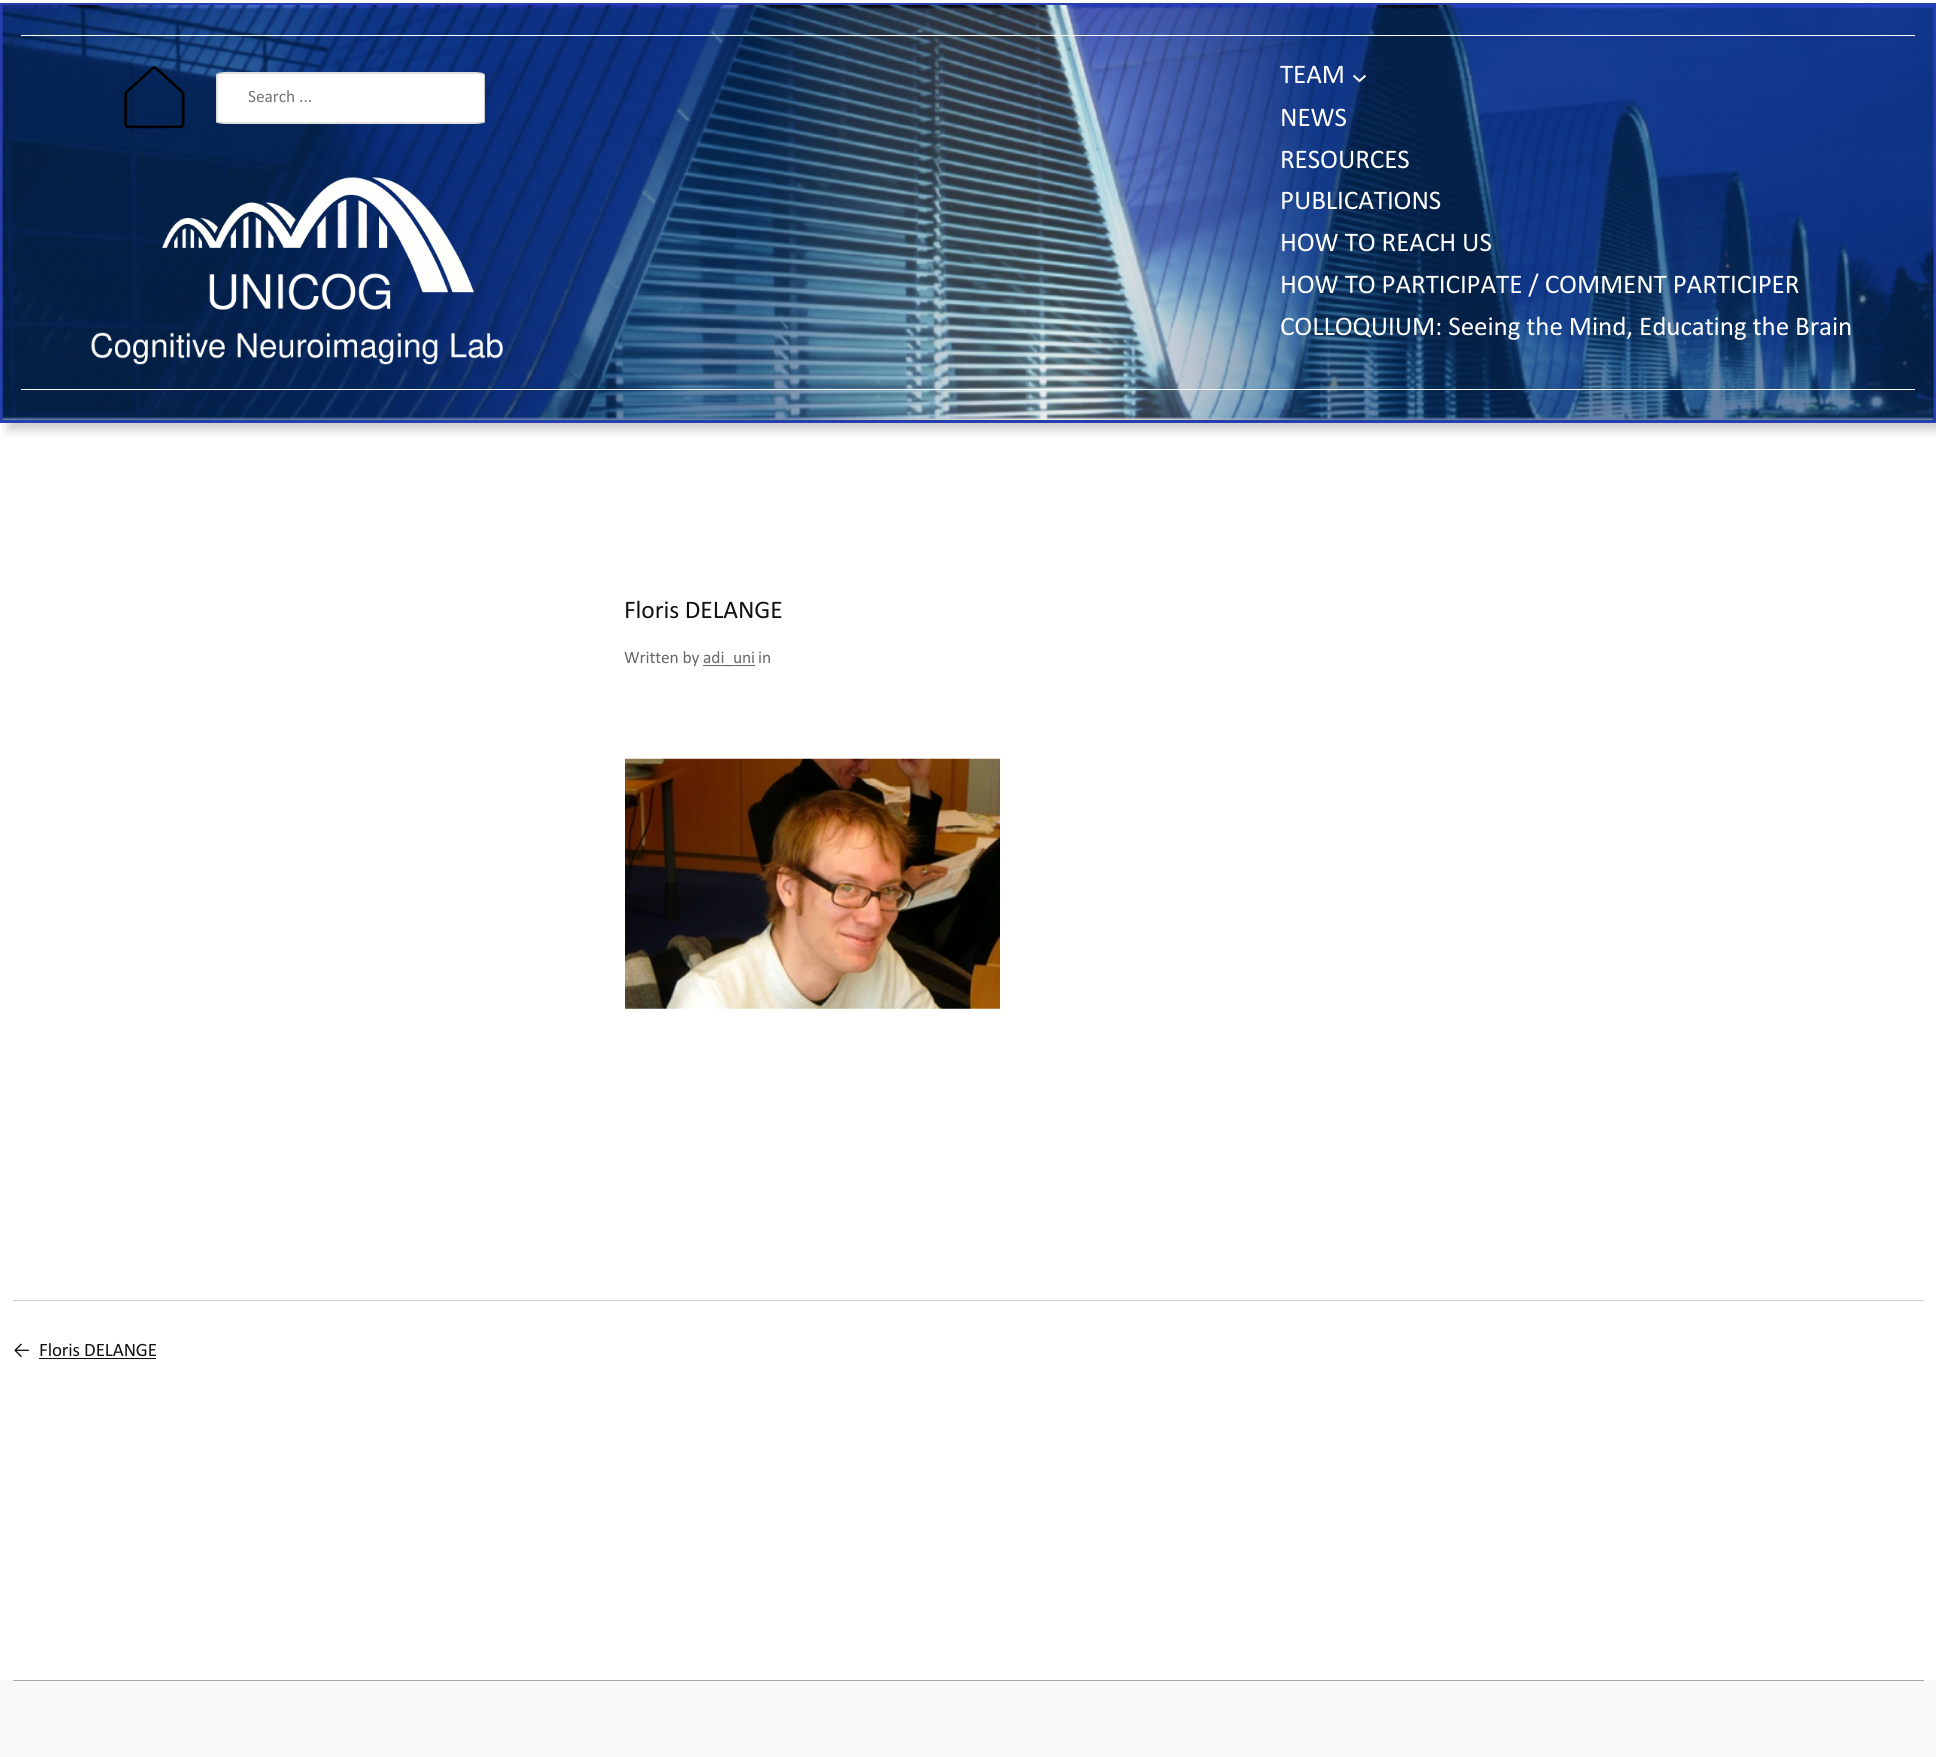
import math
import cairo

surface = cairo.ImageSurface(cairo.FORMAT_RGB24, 1936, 1757)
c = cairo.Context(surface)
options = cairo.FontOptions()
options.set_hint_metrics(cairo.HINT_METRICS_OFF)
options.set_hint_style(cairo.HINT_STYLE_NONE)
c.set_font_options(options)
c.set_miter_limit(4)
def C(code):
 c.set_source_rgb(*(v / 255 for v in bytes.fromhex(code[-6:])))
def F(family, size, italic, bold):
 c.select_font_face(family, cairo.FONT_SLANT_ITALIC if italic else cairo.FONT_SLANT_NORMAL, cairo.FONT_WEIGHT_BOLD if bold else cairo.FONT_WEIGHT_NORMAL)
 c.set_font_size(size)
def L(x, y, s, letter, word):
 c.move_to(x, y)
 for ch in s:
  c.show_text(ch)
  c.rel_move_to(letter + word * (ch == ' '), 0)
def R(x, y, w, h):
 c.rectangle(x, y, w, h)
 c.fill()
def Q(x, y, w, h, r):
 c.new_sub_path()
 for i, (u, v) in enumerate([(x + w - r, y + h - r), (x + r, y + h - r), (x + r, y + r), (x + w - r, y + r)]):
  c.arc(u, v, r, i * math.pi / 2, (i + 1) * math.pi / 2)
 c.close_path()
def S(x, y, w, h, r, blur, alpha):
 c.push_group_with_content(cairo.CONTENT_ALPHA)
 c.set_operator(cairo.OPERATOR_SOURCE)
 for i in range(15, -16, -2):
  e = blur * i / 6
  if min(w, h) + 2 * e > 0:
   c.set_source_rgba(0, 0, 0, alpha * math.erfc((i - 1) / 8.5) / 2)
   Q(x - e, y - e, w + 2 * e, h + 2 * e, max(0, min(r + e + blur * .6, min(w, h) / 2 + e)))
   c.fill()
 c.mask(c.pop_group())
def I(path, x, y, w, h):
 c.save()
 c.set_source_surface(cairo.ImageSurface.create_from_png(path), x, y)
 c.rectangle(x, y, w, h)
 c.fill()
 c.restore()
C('ffffff')
c.paint()
c.save()
c.rectangle(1,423,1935,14)
c.clip()
C('000000')
S(8,10,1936,420,0,5.5,.2)
c.restore()
c.rectangle(1.5,4.5,1933,417)
C('273eae')
c.set_line_width(3)
c.stroke()
I('1.png',2,5,1932,415)
C('ffffff')
R(21,35,1894,1)
I('2.png',124,66,61,63)
c.new_path()
c.move_to(227,72)
c.line_to(474,72)
c.curve_to(480,72,485,73,485,75)
c.line_to(485,122)
c.curve_to(485,123,480,124,474,124)
c.line_to(227,124)
c.curve_to(221,124,216,123,216,122)
c.line_to(216,75)
c.curve_to(216,73,221,72,227,72)
c.close_path()
c.fill()
c.new_path()
c.move_to(227,73)
c.line_to(474,73)
c.curve_to(480,73,484.5,74,484.5,74.5)
c.line_to(484.5,121.5)
c.curve_to(484.5,122.5,480,123,474,123)
c.line_to(227,123)
c.curve_to(221.5,123,217,122.5,217,121.5)
c.line_to(217,74.5)
c.curve_to(217,74,221.5,73,227,73)
c.close_path()
c.set_source_rgba(0,0,0,0.2)
c.set_line_width(1.2)
c.stroke()
F('Calibri',17.5,0,0)
C('757575')
L(248,102,'Search ...',-.1,0)
I('3.png',91,177,412,188)
F('Calibri',27.1,0,0)
C('ffffff')
L(1280,83,'TEAM',-.1,0)
c.new_path()
c.move_to(1353.5,75.5)
c.line_to(1359.5,81)
c.line_to(1365.5,75.5)
c.set_line_width(2)
c.stroke()
L(1280,126,'NEWS',-.1,0)
L(1280,168,'RESOURCES',-.1,0)
L(1280,209,'PUBLICATIONS',-.1,0)
L(1280,251,'HOW TO REACH US',-.1,0)
L(1280,293,'HOW TO PARTICIPATE / COMMENT PARTICIPER',-.1,0)
L(1280,335,'COLLOQUIUM: Seeing the Mind, Educating the Brain',-.1,0)
R(21,389,1894,1)
F('Calibri',25.5,0,0)
C('111111')
L(624,618,'Floris DELANGE',-.1,0)
F('Calibri',17.5,0,0)
C('686868')
L(624,663,'Written by',-.1,0)
R(703,665,52,1)
L(703,663,'adi_uni',-.1,0)
L(758,663,'in',-.1,0)
I('4.png',625,758,375,251)
C('cfcfcf')
R(13,1300,1911,1)
F('Calibri',19,0,0)
C('111111')
L(13,1356,'←',-.1,0)
L(39,1356,'Floris DELANGE',-.1,0)
R(39,1358,117,1)
C('f9f9f9')
R(0,1680,1936,77)
C('aaaaaa')
R(13,1680,1911,1)
surface.write_to_png('o.png')
